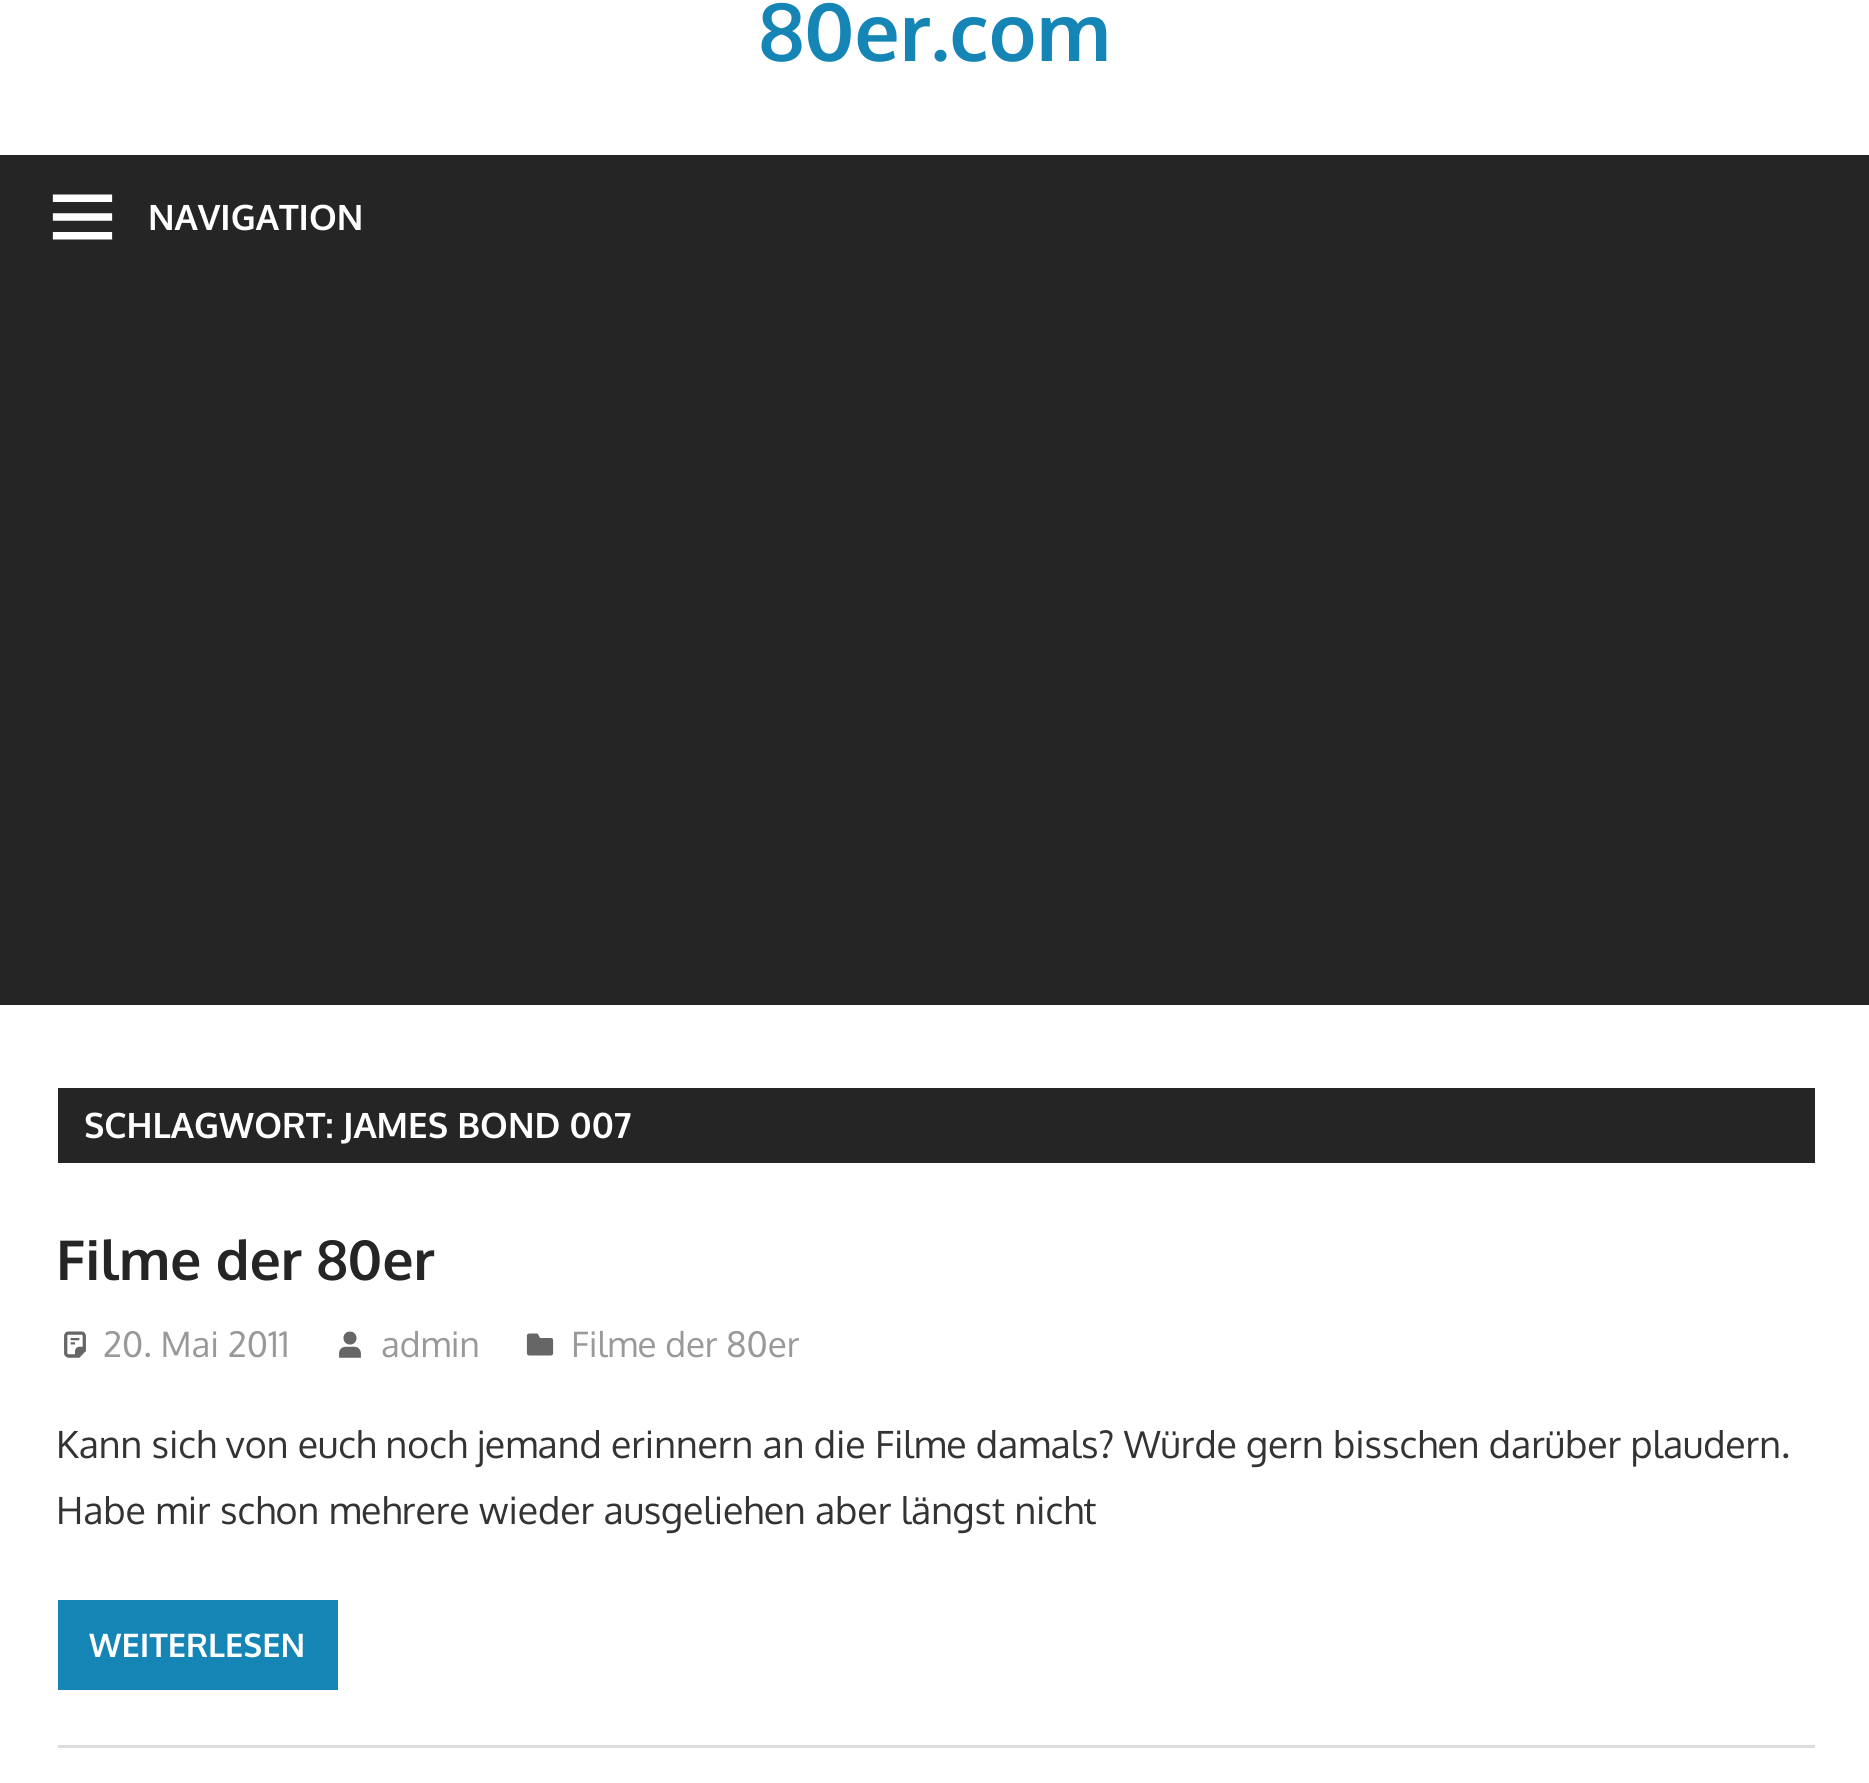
import math
import cairo

surface = cairo.ImageSurface(cairo.FORMAT_RGB24, 1869, 1783)
c = cairo.Context(surface)
options = cairo.FontOptions()
options.set_hint_metrics(cairo.HINT_METRICS_OFF)
options.set_hint_style(cairo.HINT_STYLE_NONE)
c.set_font_options(options)
c.set_miter_limit(4)
def C(code):
 c.set_source_rgb(*(v / 255 for v in bytes.fromhex(code[-6:])))
def F(family, size, italic, bold):
 c.select_font_face(family, cairo.FONT_SLANT_ITALIC if italic else cairo.FONT_SLANT_NORMAL, cairo.FONT_WEIGHT_BOLD if bold else cairo.FONT_WEIGHT_NORMAL)
 c.set_font_size(size)
def T(x, y, s):
 c.move_to(x, y)
 c.show_text(s)
def R(x, y, w, h):
 c.rectangle(x, y, w, h)
 c.fill()
def I(path, x, y, w, h):
 c.save()
 c.set_source_surface(cairo.ImageSurface.create_from_png(path), x, y)
 c.rectangle(x, y, w, h)
 c.fill()
 c.restore()
C('ffffff')
c.paint()
F('Oxygen',80,0,1)
C('1585b5')
T(759,61,'80er.com')
C('252525')
R(0,155,1869,850)
I('1.png',52,194,61,46)
F('Oxygen',35,0,1)
C('ffffff')
T(148,230,'NAVIGATION')
C('252525')
R(58,1088,1757,75)
C('ffffff')
T(84,1138,'SCHLAGWORT: JAMES BOND 007')
C('dddddd')
R(58,1745,1757,3)
F('Oxygen',55,0,1)
C('252525')
T(56,1280,'Filme der 80er')
I('2.png',64,1331,22,27)
F('Oxygen',35,0,0)
C('999999')
T(103,1357,'20. Mai 2011')
I('3.png',339,1331,22,27)
T(381,1357,'admin')
I('4.png',526,1333,28,23)
T(571,1357,'Filme der 80er')
F('Oxygen',37.5,0,0)
C('333333')
T(56,1458,'Kann sich von euch noch jemand erinnern an die Filme damals? Würde gern bisschen darüber plaudern.')
T(56,1524,'Habe mir schon mehrere wieder ausgeliehen aber längst nicht')
C('1585b5')
R(58,1600,280,90)
F('Oxygen',32.5,0,1)
C('ffffff')
T(89,1657,'WEITERLESEN')
surface.write_to_png('o.png')
